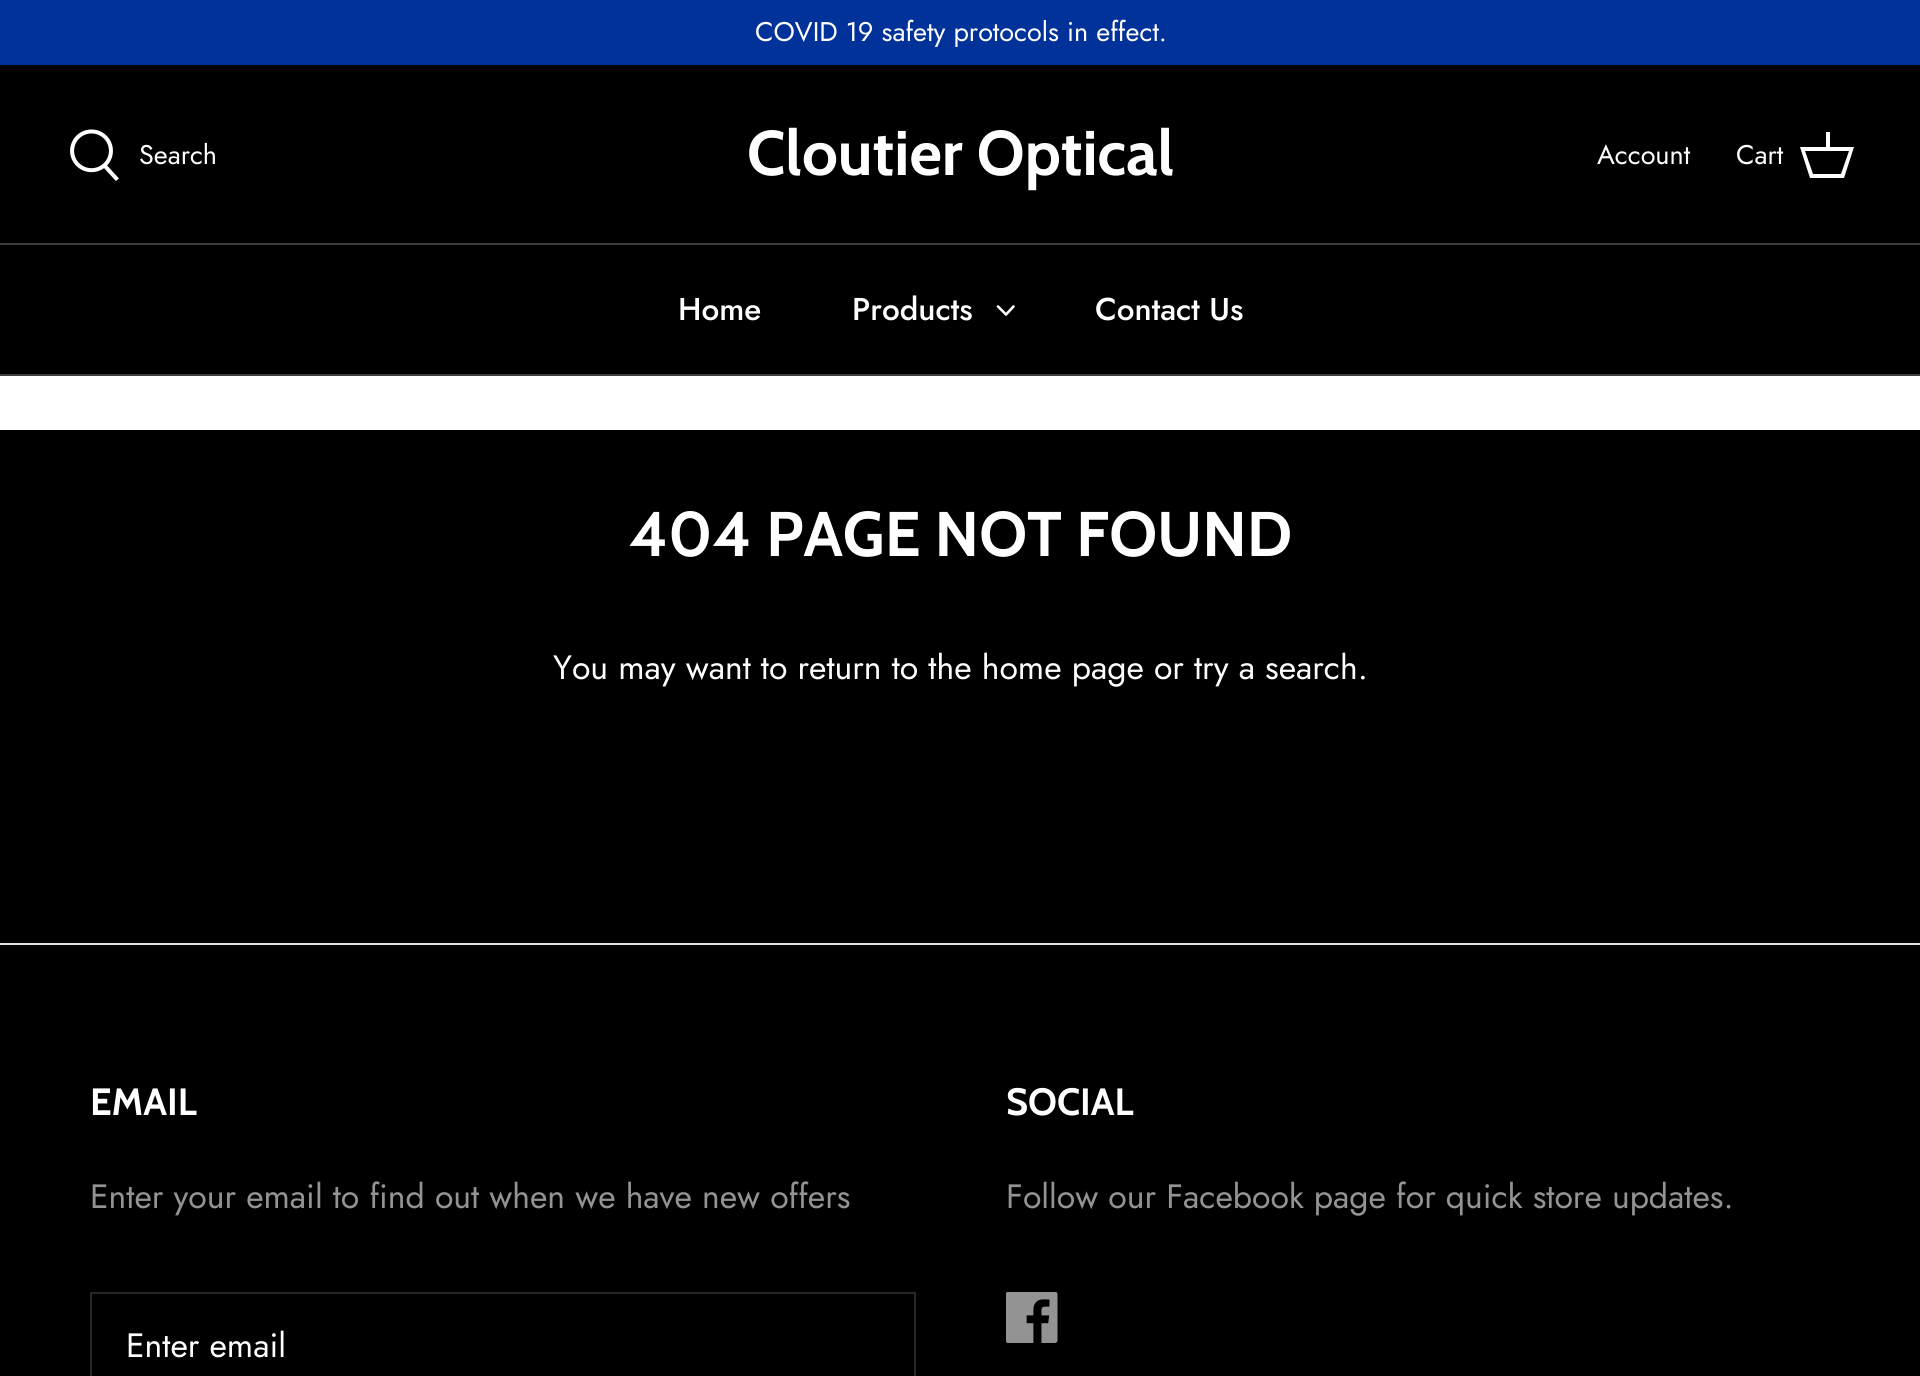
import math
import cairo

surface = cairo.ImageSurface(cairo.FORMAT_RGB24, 1920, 1376)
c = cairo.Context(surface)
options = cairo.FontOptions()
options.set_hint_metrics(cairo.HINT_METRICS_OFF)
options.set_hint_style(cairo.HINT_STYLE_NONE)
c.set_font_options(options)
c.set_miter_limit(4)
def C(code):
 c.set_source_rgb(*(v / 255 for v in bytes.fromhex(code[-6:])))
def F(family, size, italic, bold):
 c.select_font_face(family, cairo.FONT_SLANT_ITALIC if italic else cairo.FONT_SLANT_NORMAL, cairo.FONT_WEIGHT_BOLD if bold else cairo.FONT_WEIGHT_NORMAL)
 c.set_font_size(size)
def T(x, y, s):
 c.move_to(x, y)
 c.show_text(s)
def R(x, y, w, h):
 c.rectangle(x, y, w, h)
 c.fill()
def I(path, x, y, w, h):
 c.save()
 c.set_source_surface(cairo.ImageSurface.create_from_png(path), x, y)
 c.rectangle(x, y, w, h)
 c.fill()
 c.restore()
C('000000')
c.paint()
C('013299')
R(0,0,1920,65)
F('Jost',27,0,0)
C('ffffff')
T(755,41,'COVID 19 safety protocols in effect.')
C('3d3d3d')
R(0,243,1920,2)
I('1.png',70,129,49,52)
C('ffffff')
T(139,164,'Search')
F('Cabin',63,0,1)
T(747,175,'Cloutier Optical')
F('Jost',27,0,0)
T(1597,164,'Account')
T(1736,164,'Cart')
c.new_path()
c.move_to(1826,147)
c.line_to(1826,132)
c.line_to(1830,132)
c.line_to(1830,147)
c.line_to(1854,147)
c.line_to(1844,178)
c.line_to(1810,178)
c.line_to(1800,147)
c.close_path()
c.move_to(1805,151)
c.line_to(1813,174)
c.line_to(1841,174)
c.line_to(1849,151)
c.close_path()
c.fill()
C('3d3d3d')
R(0,374,1920,2)
F('Jost Medium',31.5,0,0)
C('ffffff')
T(678,320,'Home')
T(852,320,'Products')
c.new_path()
c.move_to(998,306.5)
c.line_to(1006,314.5)
c.line_to(1013.5,306.5)
c.set_line_width(2.6)
c.set_line_cap(cairo.LINE_CAP_ROUND)
c.set_line_join(cairo.LINE_JOIN_ROUND)
c.stroke()
T(1095,320,'Contact Us')
R(0,376,1920,54)
F('Cabin',63,0,1)
T(629,556,'404 PAGE NOT FOUND')
F('Jost',33.75,0,0)
T(553,679,'You may want to return to the home page or try a search.')
C('e0e0e0')
R(0,943,1920,2)
F('Cabin',38,0,1)
C('ffffff')
T(90,1115,'EMAIL')
F('Jost',33.75,0,0)
C('939393')
T(90,1208,'Enter your email to find out when we have new offers')
c.rectangle(91,1293,824,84)
C('262626')
c.set_line_width(2)
c.set_line_cap(cairo.LINE_CAP_BUTT)
c.set_line_join(cairo.LINE_JOIN_MITER)
c.stroke()
C('ffffff')
T(126,1357,'Enter email')
F('Cabin',38,0,1)
T(1006,1115,'SOCIAL')
F('Jost',33.75,0,0)
C('939393')
T(1006,1208,'Follow our Facebook page for quick store updates.')
I('2.png',1006,1292,52,51)
surface.write_to_png('o.png')
